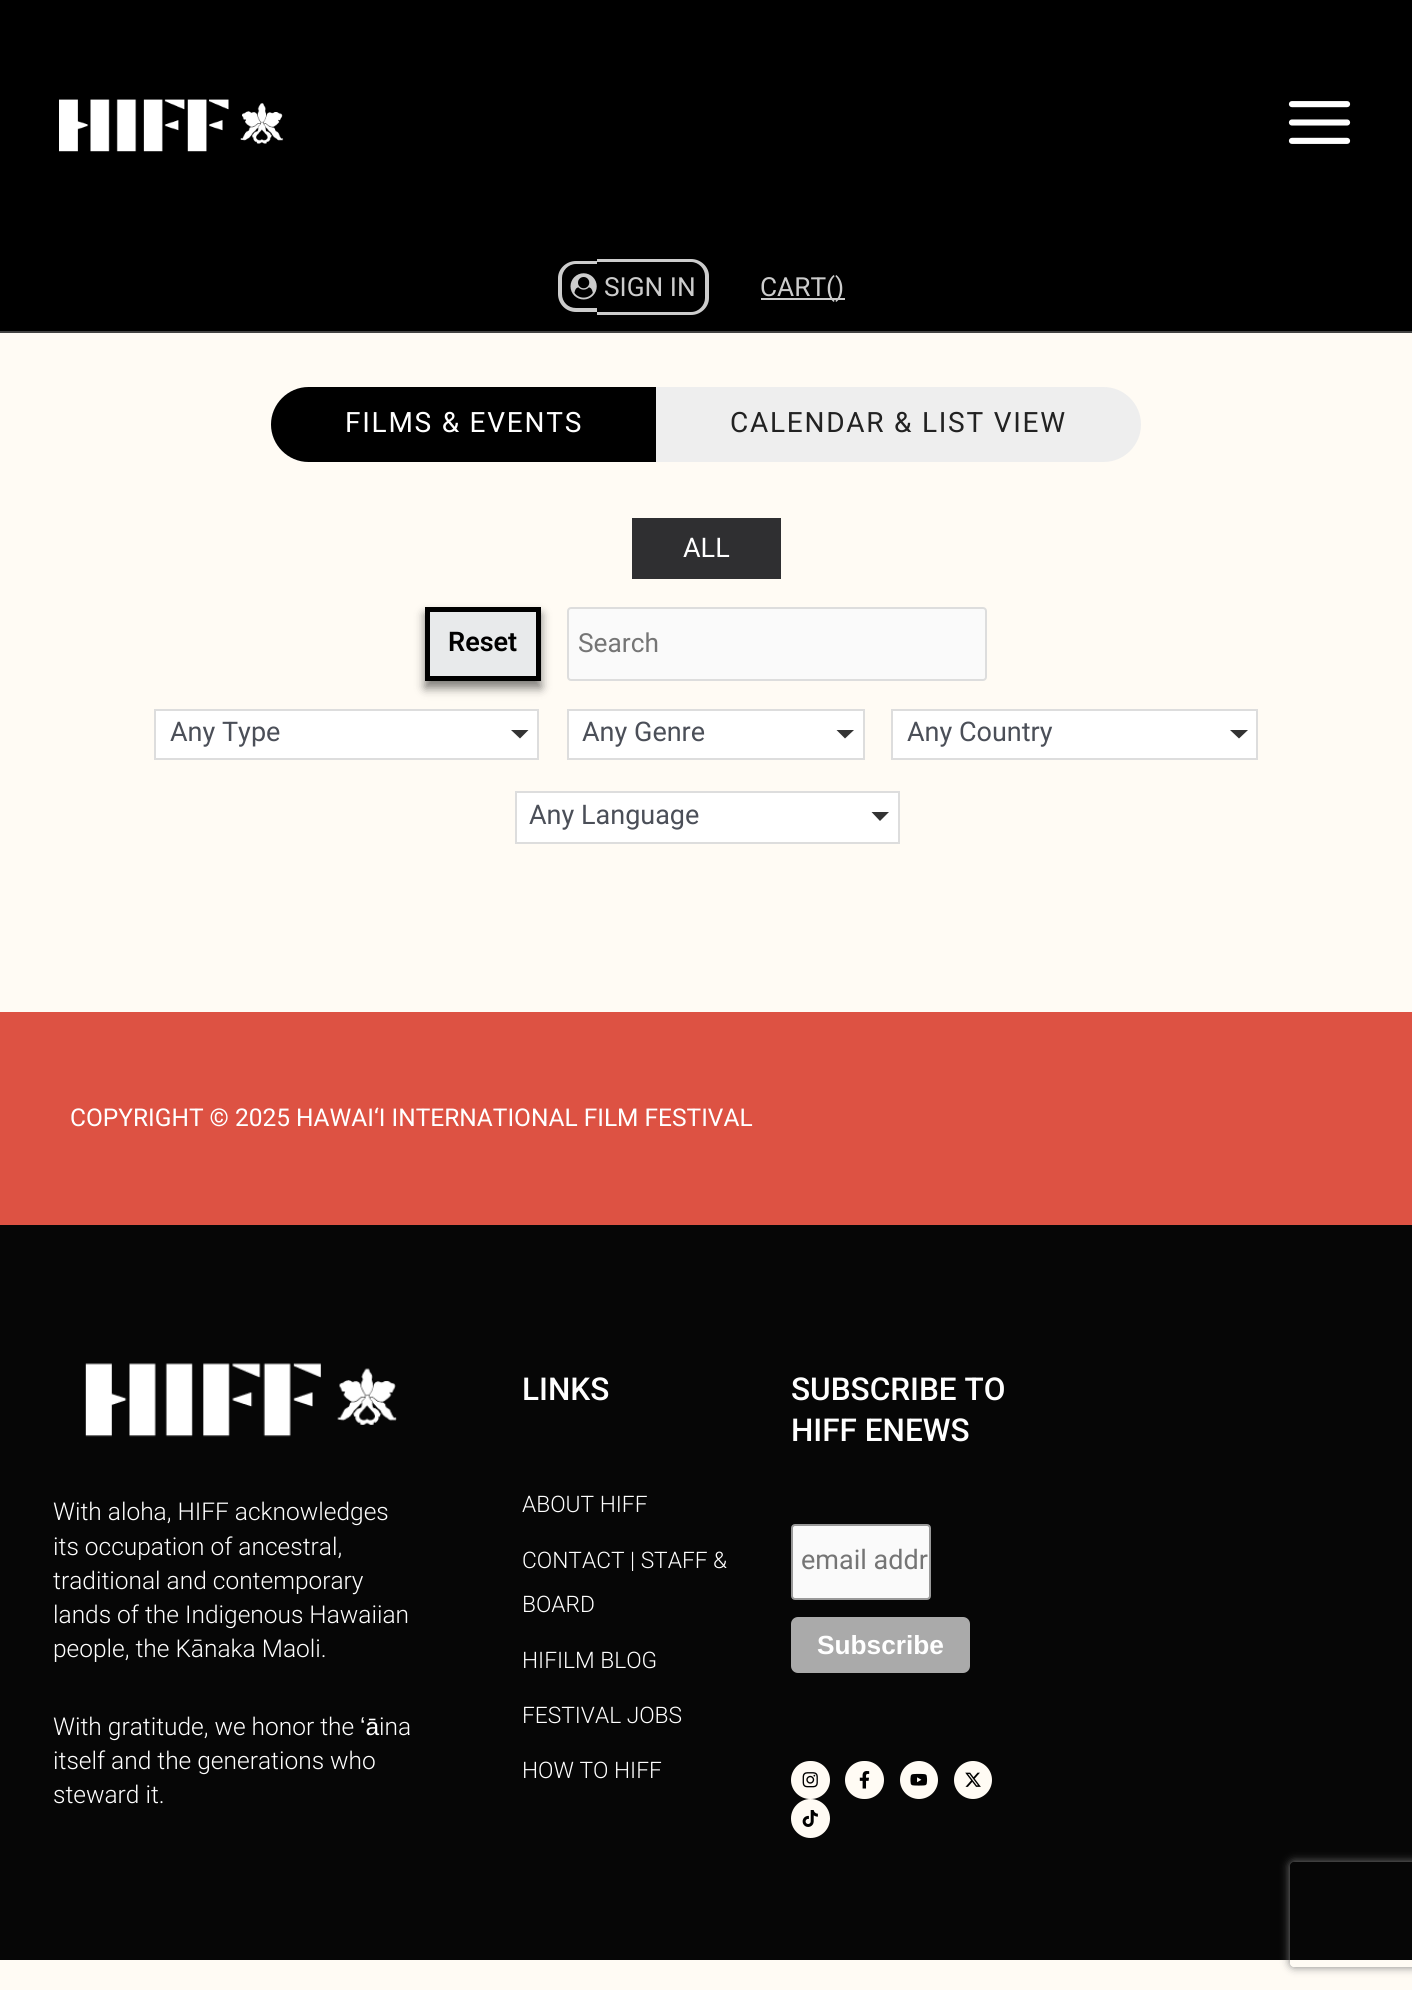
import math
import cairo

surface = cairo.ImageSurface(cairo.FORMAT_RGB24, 1412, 1990)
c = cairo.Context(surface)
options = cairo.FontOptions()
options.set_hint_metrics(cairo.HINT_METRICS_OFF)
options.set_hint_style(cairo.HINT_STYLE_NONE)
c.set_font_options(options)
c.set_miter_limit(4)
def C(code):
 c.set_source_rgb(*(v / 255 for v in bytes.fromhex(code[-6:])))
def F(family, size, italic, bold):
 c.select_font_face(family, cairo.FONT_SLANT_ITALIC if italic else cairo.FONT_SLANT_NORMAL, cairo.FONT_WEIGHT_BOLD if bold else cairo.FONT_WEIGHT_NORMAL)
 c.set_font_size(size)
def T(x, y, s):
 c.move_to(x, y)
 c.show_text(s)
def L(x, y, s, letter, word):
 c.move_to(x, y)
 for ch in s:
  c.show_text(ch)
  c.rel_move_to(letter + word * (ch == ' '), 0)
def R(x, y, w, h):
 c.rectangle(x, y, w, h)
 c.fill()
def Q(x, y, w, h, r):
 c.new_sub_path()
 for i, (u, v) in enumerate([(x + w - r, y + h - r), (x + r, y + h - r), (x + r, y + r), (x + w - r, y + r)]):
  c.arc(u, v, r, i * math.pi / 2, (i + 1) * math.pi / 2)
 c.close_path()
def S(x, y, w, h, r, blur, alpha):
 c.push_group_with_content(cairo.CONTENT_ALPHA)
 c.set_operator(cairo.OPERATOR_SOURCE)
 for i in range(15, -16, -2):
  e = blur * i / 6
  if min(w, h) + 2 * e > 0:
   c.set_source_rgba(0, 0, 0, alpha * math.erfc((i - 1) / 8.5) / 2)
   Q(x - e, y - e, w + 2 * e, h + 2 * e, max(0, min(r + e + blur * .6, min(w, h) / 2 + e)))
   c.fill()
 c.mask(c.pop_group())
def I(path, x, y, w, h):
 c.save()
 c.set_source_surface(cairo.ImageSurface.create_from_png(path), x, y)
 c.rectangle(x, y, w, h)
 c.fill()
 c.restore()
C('fffbf4')
c.paint()
C('000000')
R(0,0,1412,331)
I('1.png',59,99,225,53)
I('2.png',1288,101,63,43)
C('424242')
R(0,331,1412,2)
C('cccccc')
c.set_fill_rule(cairo.FILL_RULE_EVEN_ODD)
c.new_path()
c.move_to(576,261)
c.line_to(597,261)
c.line_to(597,312)
c.line_to(576,312)
c.curve_to(566,312,558,304,558,294)
c.line_to(558,278)
c.curve_to(558,269,566,261,576,261)
c.close_path()
c.move_to(576,264)
c.line_to(597,264)
c.line_to(597,308)
c.line_to(576,308)
c.curve_to(568,308,562,302,562,294)
c.line_to(562,278)
c.curve_to(562,271,568,264,576,264)
c.close_path()
c.fill()
c.new_path()
c.move_to(597,259)
c.line_to(691,259)
c.curve_to(701,259,709,267,709,276)
c.line_to(709,298)
c.curve_to(709,307,701,315,691,315)
c.line_to(597,315)
c.close_path()
c.move_to(597,262)
c.line_to(691,262)
c.curve_to(699,262,705,269,705,276)
c.line_to(705,298)
c.curve_to(705,305,699,312,691,312)
c.line_to(597,312)
c.close_path()
c.fill()
I('3.png',570,273,27,27)
F('Roboto',26.25,0,0)
T(604,296,'SIGN IN')
R(761,298,84,2)
T(760,296,'CART()')
C('eeeeee')
Q(271,387,870,75,37.5)
c.fill()
C('000000')
c.new_path()
c.move_to(308.5,387)
c.line_to(656,387)
c.line_to(656,462)
c.line_to(308.5,462)
c.curve_to(288,462,271,445,271,424.5)
c.curve_to(271,404,288,387,308.5,387)
c.close_path()
c.fill()
F('Roboto',28,0,0)
C('ffffff')
L(345,432,'FILMS & EVENTS',1.75,0)
C('222222')
L(730,432,'CALENDAR & LIST VIEW',1.75,0)
C('2f2f31')
R(632,518,149,61)
F('Roboto',27,0,0)
C('ffffff')
T(683,557,'ALL')
C('000000')
S(425,614,116,74,0,5,.5)
C('e8eaeb')
c.rectangle(427.5,609.5,111,69)
c.fill_preserve()
C('000000')
c.set_line_width(5)
c.stroke()
F('Roboto SemiBold',27,0,0)
T(448,651,'Reset')
C('fafafa')
Q(568,608,418,72,3)
c.fill_preserve()
C('dddddd')
c.set_line_width(2)
c.stroke()
F('Roboto',26.25,0,0)
C('757575')
T(578,652,'Search')
C('ffffff')
c.rectangle(155,710,383,49)
c.fill_preserve()
C('dddddd')
c.stroke()
F('Roboto',27,0,0)
C('4b4f58')
T(170,741,'Any Type')
C('333333')
c.set_fill_rule(cairo.FILL_RULE_WINDING)
c.new_path()
c.move_to(511,730)
c.line_to(528.5,730)
c.line_to(520,738.5)
c.close_path()
c.fill()
C('ffffff')
c.rectangle(568,710,296,49)
c.fill_preserve()
C('dddddd')
c.stroke()
C('4b4f58')
T(582,741,'Any Genre')
C('333333')
c.new_path()
c.move_to(836.5,730)
c.line_to(854,730)
c.line_to(845,738.5)
c.close_path()
c.fill()
C('ffffff')
c.rectangle(892,710,365,49)
c.fill_preserve()
C('dddddd')
c.stroke()
C('4b4f58')
T(907,741,'Any Country')
C('333333')
c.new_path()
c.move_to(1230,730)
c.line_to(1248,730)
c.line_to(1239,738.5)
c.close_path()
c.fill()
C('ffffff')
c.rectangle(516,792,383,51)
c.fill_preserve()
C('dddddd')
c.stroke()
C('4b4f58')
T(529,824,'Any Language')
C('333333')
c.new_path()
c.move_to(871.5,812)
c.line_to(889,812)
c.line_to(880,821)
c.close_path()
c.fill()
C('dd5243')
R(0,1012,1412,213)
F('Roboto',24.5,0,0)
C('ffffff')
T(70,1126,'COPYRIGHT © 2025 HAWAI‘I INTERNATIONAL FILM FESTIVAL')
C('060606')
R(0,1225,1412,735)
I('4.png',85,1363,312,74)
F('Roboto Light',24.5,0,0)
C('ffffff')
T(53,1520,'With aloha, HIFF acknowledges')
T(53,1555,'its occupation of ancestral,')
T(53,1589,'traditional and contemporary')
T(53,1623,'lands of the Indigenous Hawaiian')
T(53,1657,'people, the Kānaka Maoli.')
T(53,1735,'With gratitude, we honor the')
F('Liberation Sans',24.5,0,0)
T(360,1735,'ʻā')
F('Roboto Light',24.5,0,0)
T(379,1735,'ina')
T(53,1769,'itself and the generations who')
T(53,1803,'steward it.')
F('Roboto Medium',31.5,0,0)
T(522,1400,'LINKS')
F('Roboto Light',22.75,0,0)
T(522,1512,'ABOUT HIFF')
T(522,1568,'CONTACT | STAFF &')
T(522,1612,'BOARD')
T(522,1668,'HIFILM BLOG')
T(522,1723,'FESTIVAL JOBS')
T(522,1778,'HOW TO HIFF')
F('Roboto Medium',31.5,0,0)
T(791,1400,'SUBSCRIBE TO')
T(791,1441,'HIFF ENEWS')
C('fafafa')
Q(792,1525,138,74,3)
c.fill_preserve()
C('999999')
c.stroke()
F('Roboto',27,0,0)
C('757575')
T(801,1569,'email addr')
C('aaaaaa')
Q(791,1617,179,56,7)
c.fill()
F('Liberation Sans',26.25,0,1)
C('ffffff')
T(817,1654,'Subscribe')
C('fffbf4')
Q(791,1761,39,38,19)
c.fill()
I('5.png',802,1772,16,16)
Q(845,1761,39,38,19)
c.fill()
I('6.png',859,1771,11,18)
c.arc(919,1780,19,0,2 * math.pi)
c.fill()
I('7.png',910,1773,18,13)
c.arc(973,1780,19,0,2 * math.pi)
c.fill()
I('8.png',965,1772,16,15)
c.arc(810.5,1818.5,19.5,0,2 * math.pi)
c.fill()
I('9.png',802,1810,16,17)
c.save()
c.set_fill_rule(cairo.FILL_RULE_EVEN_ODD)
c.new_path()
c.move_to(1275,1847)
c.line_to(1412,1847)
c.line_to(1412,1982)
c.line_to(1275,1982)
c.close_path()
c.move_to(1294,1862)
c.line_to(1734,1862)
c.curve_to(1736,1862,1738,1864,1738,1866)
c.line_to(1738,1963)
c.curve_to(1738,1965,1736,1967,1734,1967)
c.line_to(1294,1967)
c.curve_to(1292,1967,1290,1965,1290,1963)
c.line_to(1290,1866)
c.curve_to(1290,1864,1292,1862,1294,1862)
c.close_path()
c.clip()
C('808080')
S(1290,1862,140,105,4,4.5,1)
c.restore()
surface.write_to_png('o.png')
